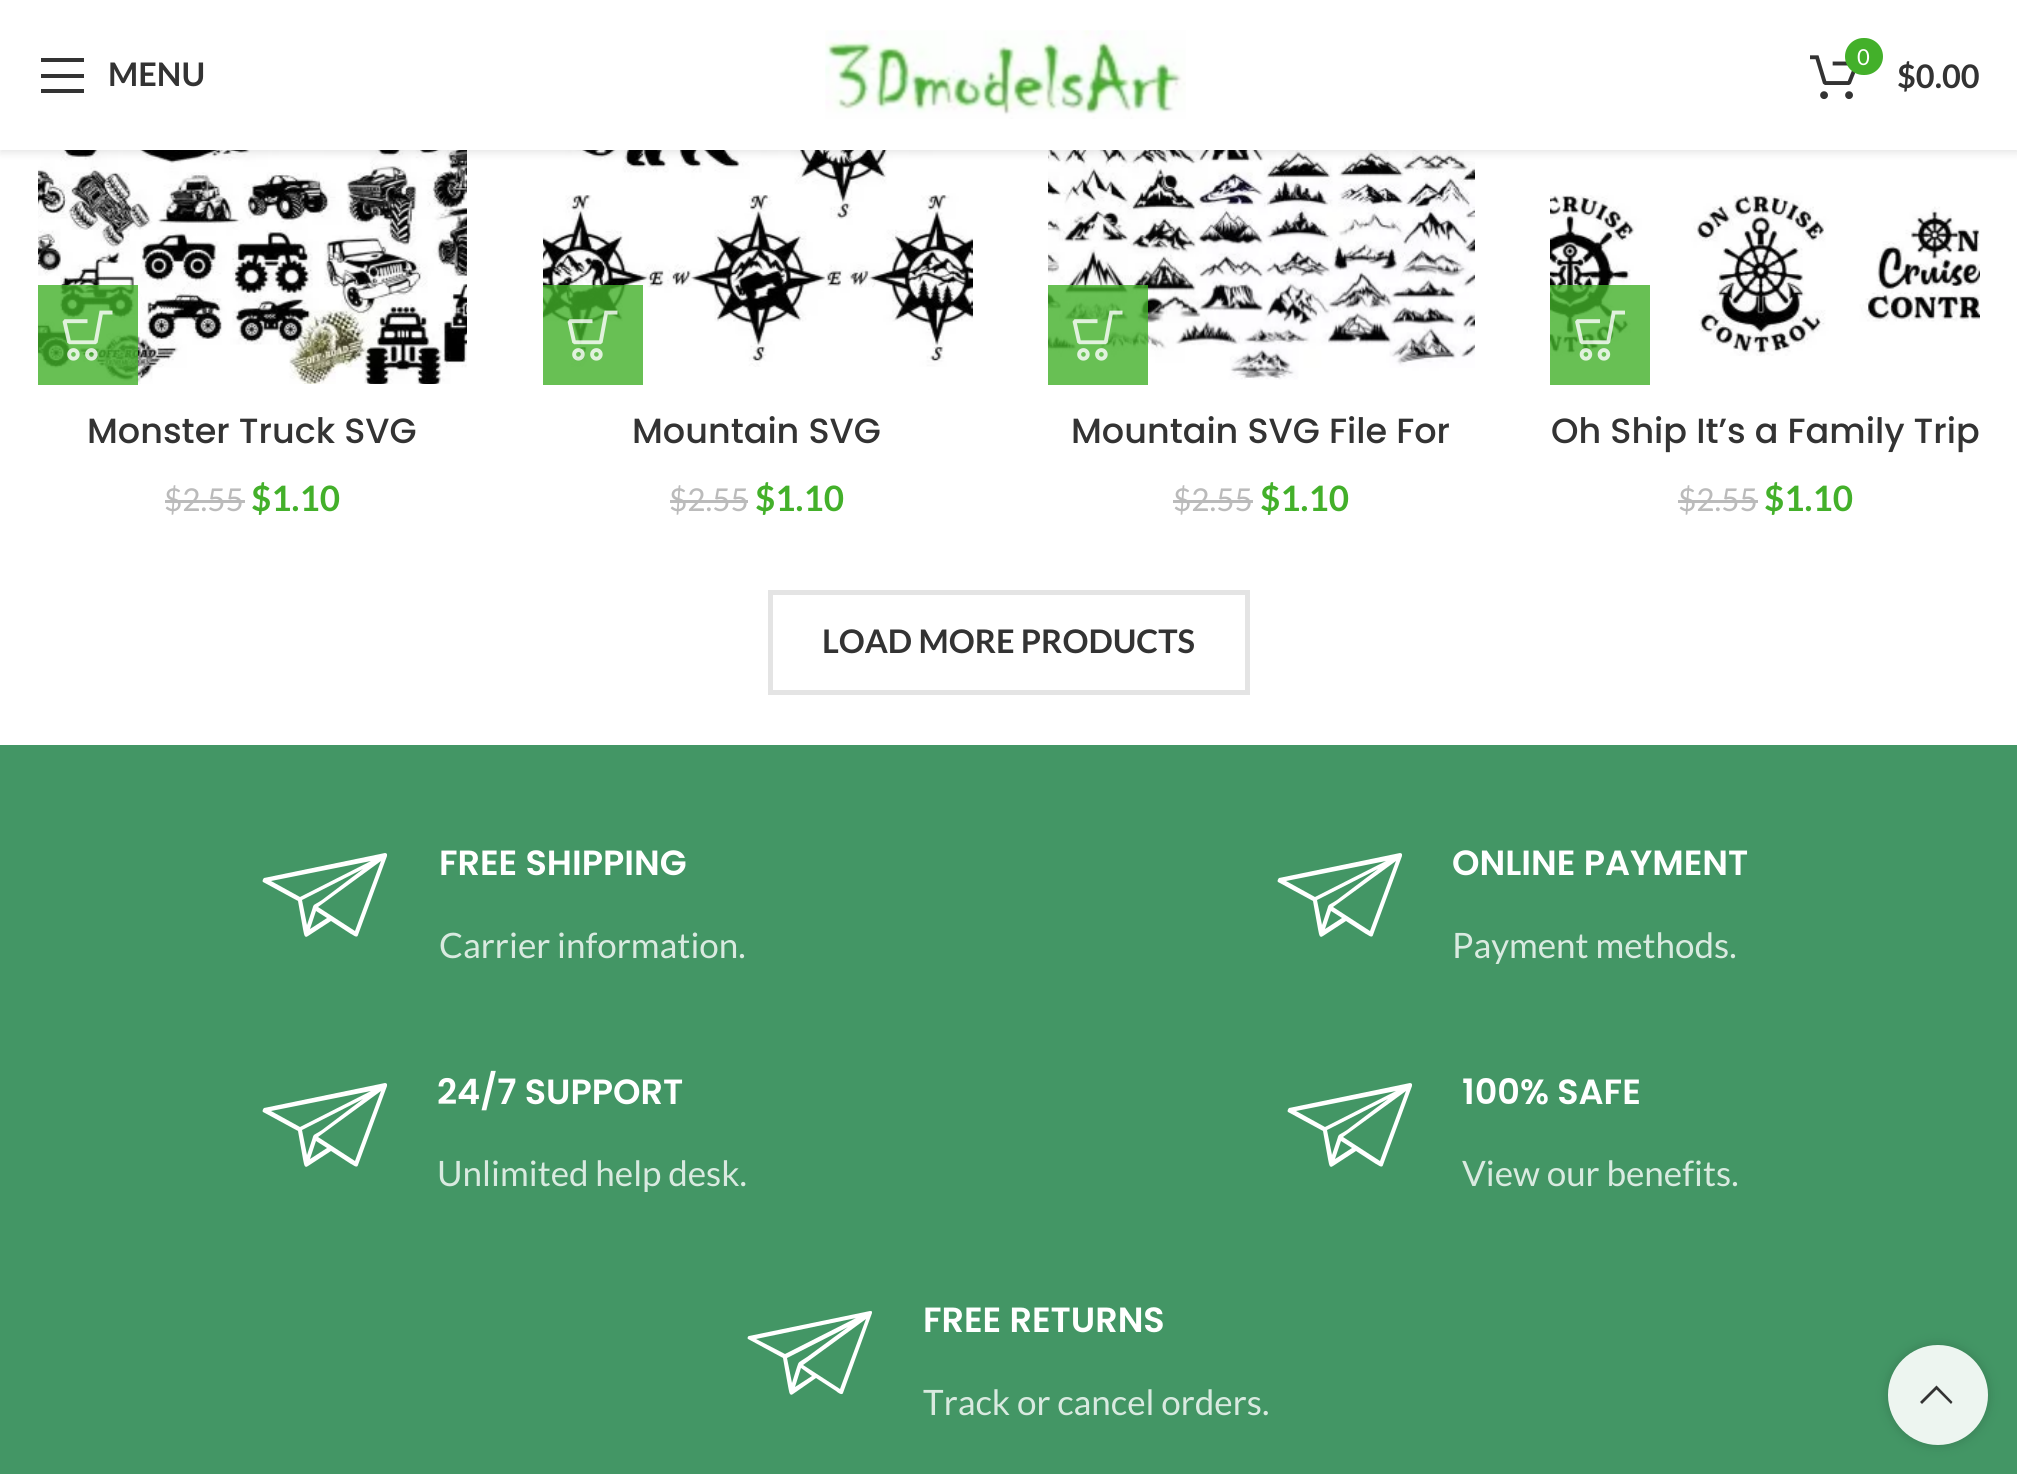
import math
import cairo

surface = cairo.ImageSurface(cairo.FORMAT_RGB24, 2017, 1474)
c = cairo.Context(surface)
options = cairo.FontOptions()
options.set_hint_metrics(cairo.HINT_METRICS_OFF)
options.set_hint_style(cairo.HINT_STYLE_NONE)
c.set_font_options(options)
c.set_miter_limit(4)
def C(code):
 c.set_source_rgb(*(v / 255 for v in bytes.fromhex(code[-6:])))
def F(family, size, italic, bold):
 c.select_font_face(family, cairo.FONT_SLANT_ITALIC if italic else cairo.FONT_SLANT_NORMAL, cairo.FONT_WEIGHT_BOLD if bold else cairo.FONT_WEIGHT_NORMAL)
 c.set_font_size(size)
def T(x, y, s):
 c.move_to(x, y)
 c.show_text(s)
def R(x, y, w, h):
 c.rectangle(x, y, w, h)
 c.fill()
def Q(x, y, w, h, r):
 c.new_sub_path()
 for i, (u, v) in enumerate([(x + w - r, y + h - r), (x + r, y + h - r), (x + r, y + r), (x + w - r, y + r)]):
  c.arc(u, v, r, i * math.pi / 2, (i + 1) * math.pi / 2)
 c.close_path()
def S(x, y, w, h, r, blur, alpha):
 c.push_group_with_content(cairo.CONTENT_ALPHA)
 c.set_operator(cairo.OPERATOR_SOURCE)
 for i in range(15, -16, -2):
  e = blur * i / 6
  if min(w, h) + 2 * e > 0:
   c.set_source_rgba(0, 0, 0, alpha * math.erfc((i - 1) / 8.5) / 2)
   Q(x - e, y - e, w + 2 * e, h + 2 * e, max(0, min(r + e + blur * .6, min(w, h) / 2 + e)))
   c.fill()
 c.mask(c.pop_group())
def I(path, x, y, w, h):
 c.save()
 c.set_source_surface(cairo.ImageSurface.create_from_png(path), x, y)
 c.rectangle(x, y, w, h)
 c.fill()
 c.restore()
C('ffffff')
c.paint()
I('3.png',38,150,429,234)
I('5.png',543,150,430,217)
I('7.png',1048,150,427,230)
I('9.png',1550,150,430,206)
C('000000')
S(0,3,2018,150,0,4,.1)
C('ffffff')
R(0,0,2017,150)
C('333333')
c.new_path()
c.move_to(41,62)
c.line_to(84,62)
c.line_to(84,58)
c.line_to(41,58)
c.close_path()
c.move_to(41,78)
c.line_to(84,78)
c.line_to(84,74)
c.line_to(41,74)
c.close_path()
c.move_to(41,93)
c.line_to(84,93)
c.line_to(84,89)
c.line_to(41,89)
c.close_path()
c.fill()
F('Lato',32.5,0,1)
T(108,86,'MENU')
I('1.png',825,30,361,89)
I('2.png',1810,55,46,45)
C('43b02a')
Q(1845,38,38,37,18.5)
c.fill()
F('Lato',22,0,0)
C('ffffff')
T(1857,65,'0')
F('Lato',32.5,0,1)
C('333333')
T(1897,88,'$0.00')
c.set_source_rgba(0.263,0.69,0.165,0.8)
R(38,285,100,100)
I('4.png',62,310,51,51)
F('Poppins Medium',35,0,0)
C('333333')
T(87,443,'Monster Truck SVG')
F('Lato',31.5,0,0)
C('bbbbbb')
T(164,511,'$2.55')
R(165,500,80,3)
F('Lato',35,0,1)
C('43b02a')
T(251,511,'$1.10')
c.set_source_rgba(0.263,0.69,0.165,0.8)
R(543,285,100,100)
I('6.png',567,310,51,51)
F('Poppins Medium',35,0,0)
C('333333')
T(632,443,'Mountain SVG')
F('Lato',31.5,0,0)
C('bbbbbb')
T(669,511,'$2.55')
R(670,500,78,3)
F('Lato',35,0,1)
C('43b02a')
T(755,511,'$1.10')
c.set_source_rgba(0.263,0.69,0.165,0.8)
R(1048,285,100,100)
I('8.png',1072,310,51,51)
F('Poppins Medium',35,0,0)
C('333333')
T(1071,443,'Mountain SVG File For')
F('Lato',31.5,0,0)
C('bbbbbb')
T(1173,511,'$2.55')
R(1173,500,80,3)
F('Lato',35,0,1)
C('43b02a')
T(1260,511,'$1.10')
c.set_source_rgba(0.263,0.69,0.165,0.8)
R(1550,285,100,100)
I('10.png',1575,310,50,51)
F('Poppins Medium',35,0,0)
C('333333')
T(1551,443,'Oh Ship It’s a Family Trip')
F('Lato',31.5,0,0)
C('bbbbbb')
T(1678,511,'$2.55')
R(1678,500,80,3)
F('Lato',35,0,1)
C('43b02a')
T(1764,511,'$1.10')
c.rectangle(770.5,592.5,477,100)
C('e4e4e4')
c.set_line_width(5)
c.stroke()
F('Lato',32.5,0,1)
C('333333')
T(822,653,'LOAD MORE PRODUCTS')
C('439665')
R(0,745,2017,729)
C('ffffff')
c.new_path()
c.move_to(387,856)
c.line_to(387,854)
c.curve_to(387,854,386,853,385,853)
c.line_to(264,878)
c.curve_to(263,879,262,881,263,882)
c.line_to(298,901)
c.line_to(303,929)
c.curve_to(304,933,304,939,308,936)
c.line_to(331,921)
c.line_to(351,934)
c.curve_to(352,934,357,939,358,935)
c.close_path()
c.move_to(363,869)
c.line_to(322,900)
c.curve_to(313,906,314,903,312,910)
c.line_to(307,925)
c.line_to(302,900)
c.close_path()
c.move_to(310,929)
c.line_to(316,911)
c.line_to(327,918)
c.close_path()
c.move_to(371,861)
c.line_to(300,897)
c.line_to(271,881)
c.close_path()
c.move_to(355,931)
c.line_to(318,907)
c.line_to(381,861)
c.close_path()
c.fill()
F('Poppins SemiBold',35,0,0)
T(439,875,'FREE SHIPPING')
F('Lato',35,0,0)
C('d9eae0')
T(439,958,'Carrier information.')
C('ffffff')
c.new_path()
c.move_to(1402,856)
c.line_to(1402,854)
c.curve_to(1402,854,1401,853,1400,853)
c.line_to(1279,878)
c.curve_to(1278,879,1277,881,1278,882)
c.line_to(1313,901)
c.line_to(1318,929)
c.curve_to(1319,933,1319,939,1323,936)
c.line_to(1346,921)
c.line_to(1366,934)
c.curve_to(1367,934,1372,939,1373,935)
c.close_path()
c.move_to(1378,869)
c.line_to(1337,900)
c.curve_to(1328,906,1329,903,1327,910)
c.line_to(1322,925)
c.line_to(1317,900)
c.close_path()
c.move_to(1325,929)
c.line_to(1331,911)
c.line_to(1342,918)
c.close_path()
c.move_to(1386,861)
c.line_to(1315,897)
c.line_to(1286,881)
c.close_path()
c.move_to(1370,931)
c.line_to(1333,907)
c.line_to(1396,861)
c.close_path()
c.fill()
F('Poppins SemiBold',35,0,0)
T(1452,875,'ONLINE PAYMENT')
F('Lato',35,0,0)
C('d9eae0')
T(1452,958,'Payment methods.')
C('ffffff')
c.new_path()
c.move_to(387,1086)
c.line_to(387,1084)
c.curve_to(387,1084,386,1083,385,1083)
c.line_to(264,1108)
c.curve_to(263,1109,262,1111,263,1112)
c.line_to(298,1131)
c.line_to(303,1159)
c.curve_to(304,1163,304,1169,308,1166)
c.line_to(331,1151)
c.line_to(351,1164)
c.curve_to(352,1164,357,1169,358,1165)
c.close_path()
c.move_to(363,1099)
c.line_to(322,1130)
c.curve_to(313,1136,314,1133,312,1140)
c.line_to(307,1155)
c.line_to(302,1130)
c.close_path()
c.move_to(310,1159)
c.line_to(316,1141)
c.line_to(327,1148)
c.close_path()
c.move_to(371,1091)
c.line_to(300,1127)
c.line_to(271,1111)
c.close_path()
c.move_to(355,1161)
c.line_to(318,1137)
c.line_to(381,1091)
c.close_path()
c.fill()
F('Poppins SemiBold',35,0,0)
T(437,1104,'24/7 SUPPORT')
F('Lato',35,0,0)
C('d9eae0')
T(437,1186,'Unlimited help desk.')
C('ffffff')
c.new_path()
c.move_to(1412,1086)
c.line_to(1412,1084)
c.curve_to(1412,1084,1411,1083,1410,1083)
c.line_to(1289,1108)
c.curve_to(1288,1109,1287,1111,1288,1112)
c.line_to(1323,1131)
c.line_to(1328,1159)
c.curve_to(1329,1163,1329,1169,1333,1166)
c.line_to(1356,1151)
c.line_to(1376,1164)
c.curve_to(1377,1164,1382,1169,1383,1165)
c.close_path()
c.move_to(1388,1099)
c.line_to(1347,1130)
c.curve_to(1338,1136,1339,1133,1337,1140)
c.line_to(1332,1155)
c.line_to(1327,1130)
c.close_path()
c.move_to(1335,1159)
c.line_to(1341,1141)
c.line_to(1352,1148)
c.close_path()
c.move_to(1396,1091)
c.line_to(1325,1127)
c.line_to(1296,1111)
c.close_path()
c.move_to(1380,1161)
c.line_to(1343,1137)
c.line_to(1406,1091)
c.close_path()
c.fill()
F('Poppins SemiBold',35,0,0)
T(1462,1104,'100% SAFE')
F('Lato',35,0,0)
C('d9eae0')
T(1462,1186,'View our benefits.')
C('ffffff')
c.new_path()
c.move_to(872,1313)
c.line_to(872,1312)
c.curve_to(872,1311,871,1311,870,1311)
c.line_to(749,1336)
c.curve_to(748,1336,747,1338,748,1339)
c.line_to(783,1358)
c.line_to(788,1386)
c.curve_to(789,1390,789,1397,793,1394)
c.line_to(816,1378)
c.line_to(836,1391)
c.curve_to(837,1392,842,1396,843,1393)
c.close_path()
c.move_to(848,1327)
c.line_to(807,1357)
c.curve_to(798,1363,799,1361,797,1367)
c.line_to(792,1383)
c.line_to(787,1358)
c.close_path()
c.move_to(795,1387)
c.line_to(801,1368)
c.line_to(812,1376)
c.close_path()
c.move_to(856,1318)
c.line_to(785,1354)
c.line_to(756,1339)
c.close_path()
c.move_to(840,1389)
c.line_to(803,1365)
c.line_to(866,1319)
c.close_path()
c.fill()
F('Poppins SemiBold',35,0,0)
T(923,1332,'FREE RETURNS')
F('Lato',35,0,0)
C('d9eae0')
T(923,1415,'Track or cancel orders.')
c.save()
c.set_fill_rule(cairo.FILL_RULE_EVEN_ODD)
c.new_path()
c.move_to(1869,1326)
c.line_to(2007,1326)
c.line_to(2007,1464)
c.line_to(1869,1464)
c.close_path()
c.move_to(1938,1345)
c.curve_to(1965.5,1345,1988,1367.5,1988,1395)
c.curve_to(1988,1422.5,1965.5,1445,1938,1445)
c.curve_to(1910.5,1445,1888,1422.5,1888,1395)
c.curve_to(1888,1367.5,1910.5,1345,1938,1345)
c.close_path()
c.clip()
C('000000')
S(1888,1345,100,100,50,6,.17)
c.restore()
c.set_source_rgba(1,1,1,0.9)
c.arc(1938,1395,50,0,2 * math.pi)
c.fill()
C('333333')
c.new_path()
c.move_to(1951,1404)
c.line_to(1952.5,1402)
c.line_to(1936.5,1385.5)
c.line_to(1920,1402)
c.line_to(1922,1404)
c.line_to(1936.5,1389.5)
c.close_path()
c.fill()
surface.write_to_png('o.png')
